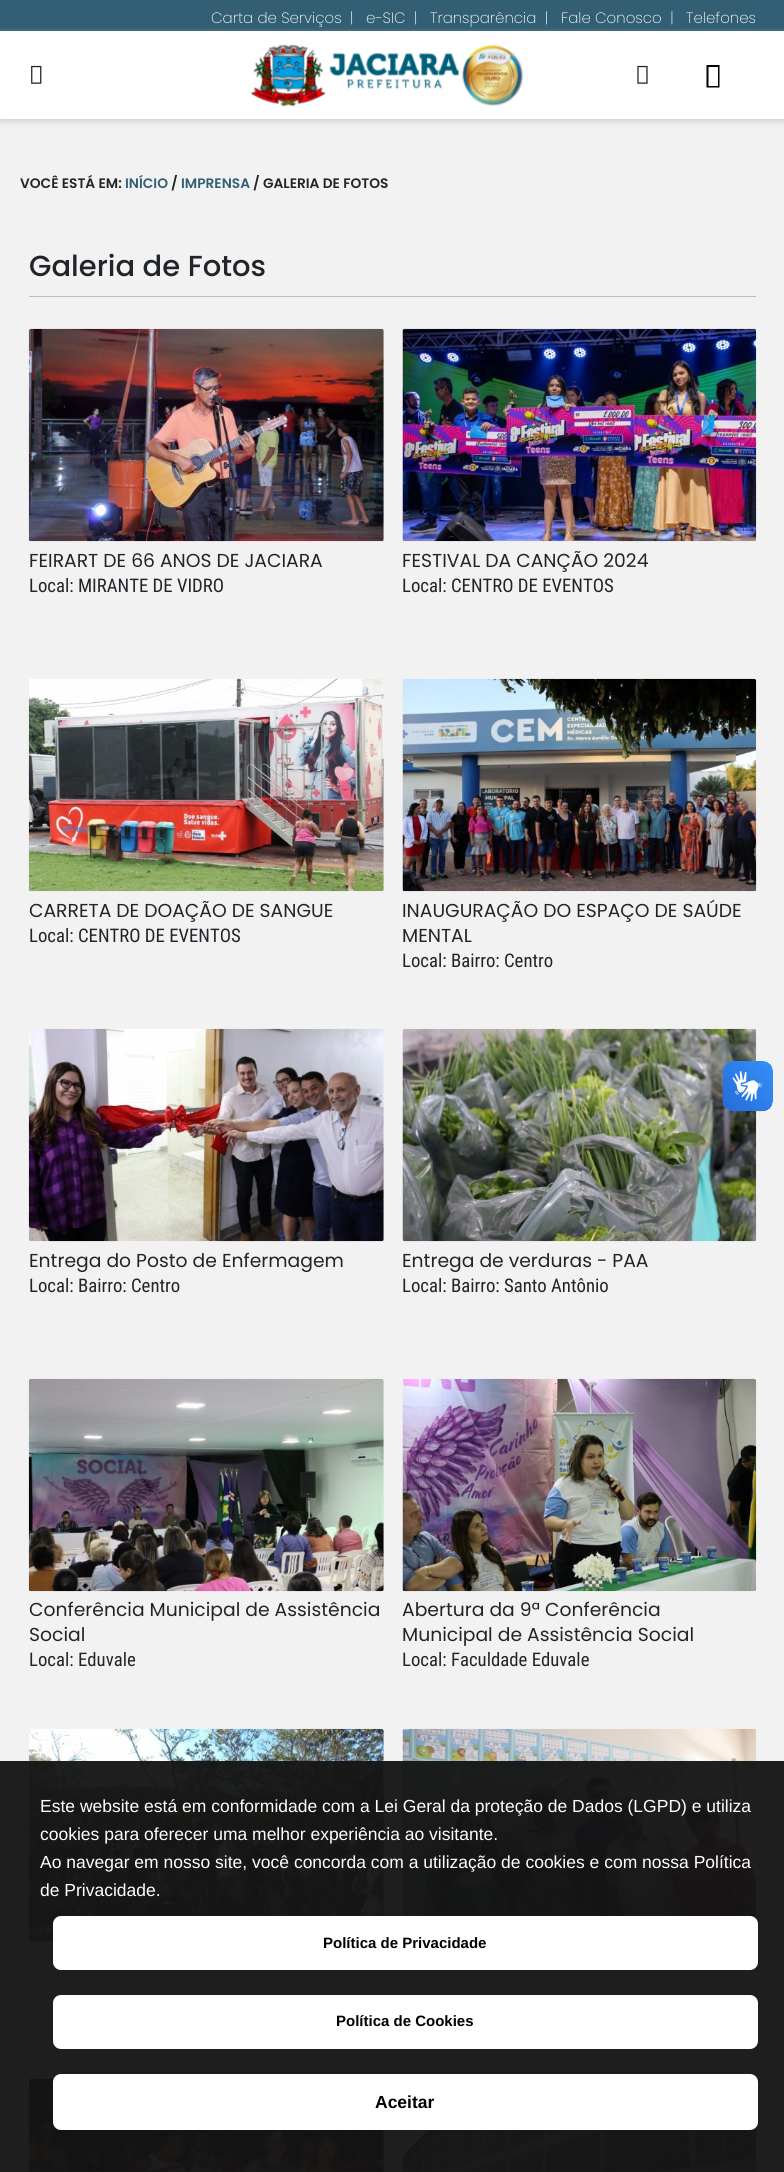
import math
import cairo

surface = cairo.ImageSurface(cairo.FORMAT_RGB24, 784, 2172)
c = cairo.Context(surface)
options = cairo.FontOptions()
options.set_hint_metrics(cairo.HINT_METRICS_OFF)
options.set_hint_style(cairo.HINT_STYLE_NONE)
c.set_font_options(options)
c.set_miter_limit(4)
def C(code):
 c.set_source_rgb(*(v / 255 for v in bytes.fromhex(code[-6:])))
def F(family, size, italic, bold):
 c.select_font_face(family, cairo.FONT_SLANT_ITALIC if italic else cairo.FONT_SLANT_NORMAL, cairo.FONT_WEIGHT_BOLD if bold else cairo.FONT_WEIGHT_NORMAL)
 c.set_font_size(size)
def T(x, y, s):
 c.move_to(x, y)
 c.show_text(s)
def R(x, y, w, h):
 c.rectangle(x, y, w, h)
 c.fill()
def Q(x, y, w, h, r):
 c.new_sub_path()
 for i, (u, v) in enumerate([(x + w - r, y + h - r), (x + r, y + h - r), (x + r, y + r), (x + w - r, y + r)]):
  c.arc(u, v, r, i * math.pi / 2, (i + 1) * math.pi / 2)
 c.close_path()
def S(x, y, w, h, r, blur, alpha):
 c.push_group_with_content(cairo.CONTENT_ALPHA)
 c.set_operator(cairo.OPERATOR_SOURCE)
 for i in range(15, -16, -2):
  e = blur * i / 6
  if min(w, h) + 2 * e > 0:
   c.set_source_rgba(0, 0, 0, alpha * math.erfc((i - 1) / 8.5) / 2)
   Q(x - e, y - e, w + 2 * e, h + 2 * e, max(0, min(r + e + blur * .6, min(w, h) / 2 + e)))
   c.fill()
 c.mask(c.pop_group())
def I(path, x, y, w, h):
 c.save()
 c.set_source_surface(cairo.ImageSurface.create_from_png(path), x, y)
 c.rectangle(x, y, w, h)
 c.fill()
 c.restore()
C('f2f2f2')
c.paint()
C('325f74')
R(0,0,784,31)
F('Poppins ExtraLight',15,0,0)
C('ffffff')
T(211,23,'Carta de Serviços  |')
T(366,23,'e-SIC  |')
T(430,23,'Transparência  |')
T(561,23,'Fale Conosco  |')
T(686,23,'Telefones')
C('cccccc')
S(0,34,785,87,0,3,1)
C('ffffff')
R(0,31,784,88)
I('1.png',31,65,11,19)
I('2.png',250,44,274,63)
I('3.png',637,65,11,19)
C('000000')
c.new_path()
c.move_to(706.5,87.5)
c.line_to(706.5,65)
c.line_to(719.5,65)
c.line_to(719.5,87.5)
c.close_path()
c.move_to(708.5,86)
c.line_to(718,86)
c.line_to(718,67)
c.line_to(708.5,67)
c.close_path()
c.fill()
F('Poppins SemiBold',13.75,0,0)
C('212529')
T(20,188,'VOCÊ ESTÁ EM:')
C('325f74')
T(125,188,'INÍCIO')
C('212529')
T(171,188,'/')
C('325f74')
T(181,188,'IMPRENSA')
C('212529')
T(253,188,'/ GALERIA DE FOTOS')
F('Poppins Medium',29,0,0)
T(29,276,'Galeria de Fotos')
C('bebfc0')
R(29,296,727,1)
I('4.png',28,328,356,214)
F('Poppins',18.75,0,0)
C('212529')
T(29,567,'FEIRART DE 66 ANOS DE JACIARA')
F('Roboto Condensed',18.75,0,0)
T(29,592,'Local: MIRANTE DE VIDRO')
I('5.png',402,328,355,214)
F('Poppins',18.75,0,0)
T(402,567,'FESTIVAL DA CANÇÃO 2024')
F('Roboto Condensed',18.75,0,0)
T(402,592,'Local: CENTRO DE EVENTOS')
I('6.png',28,678,356,214)
F('Poppins',18.75,0,0)
T(29,917,'CARRETA DE DOAÇÃO DE SANGUE')
F('Roboto Condensed',18.75,0,0)
T(29,942,'Local: CENTRO DE EVENTOS')
I('7.png',402,678,355,214)
F('Poppins',18.75,0,0)
T(402,917,'INAUGURAÇÃO DO ESPAÇO DE SAÚDE')
T(402,942,'MENTAL')
F('Roboto Condensed',18.75,0,0)
T(402,967,'Local: Bairro: Centro')
I('8.png',28,1028,356,214)
F('Poppins',18.75,0,0)
T(29,1267,'Entrega do Posto de Enfermagem')
F('Roboto Condensed',18.75,0,0)
T(29,1292,'Local: Bairro: Centro')
I('9.png',402,1028,355,214)
F('Poppins',18.75,0,0)
T(402,1267,'Entrega de verduras - PAA')
F('Roboto Condensed',18.75,0,0)
T(402,1292,'Local: Bairro: Santo Antônio')
I('10.png',28,1378,356,214)
F('Poppins',18.75,0,0)
T(29,1616,'Conferência Municipal de Assistência')
T(29,1641,'Social')
F('Roboto Condensed',18.75,0,0)
T(29,1666,'Local: Eduvale')
I('11.png',402,1378,355,214)
F('Poppins',18.75,0,0)
T(402,1616,'Abertura da 9ª Conferência')
T(402,1641,'Municipal de Assistência Social')
F('Roboto Condensed',18.75,0,0)
T(402,1666,'Local: Faculdade Eduvale')
I('12.png',28,1728,356,214)
I('13.png',402,1728,355,193)
I('14.png',28,2078,356,94)
I('15.png',402,2125,355,47)
I('16.png',722,1061,51,51)
I('17.png',723,1061,50,50)
c.set_source_rgba(0.082,0.082,0.082,0.95)
R(0,1761,784,411)
F('Liberation Sans',17.5,0,0)
C('ffffff')
T(40,1812,'Este website está em conformidade com a Lei Geral da proteção de Dados (LGPD) e utiliza')
T(40,1840,'cookies para oferecer uma melhor experiência ao visitante.')
T(40,1868,'Ao navegar em nosso site, você concorda com a utilização de cookies e com nossa Política')
T(40,1896,'de Privacidade.')
Q(53,1916,705,54,8)
c.fill()
F('Liberation Sans',15,0,1)
C('000000')
T(323,1948,'Política de Privacidade')
C('ffffff')
Q(53,1995,705,54,8)
c.fill()
C('000000')
T(336,2026,'Política de Cookies')
C('ffffff')
Q(53,2074,705,56,8)
c.fill()
F('Liberation Sans',17.5,0,1)
C('000000')
T(375,2108,'Aceitar')
surface.write_to_png('o.png')
